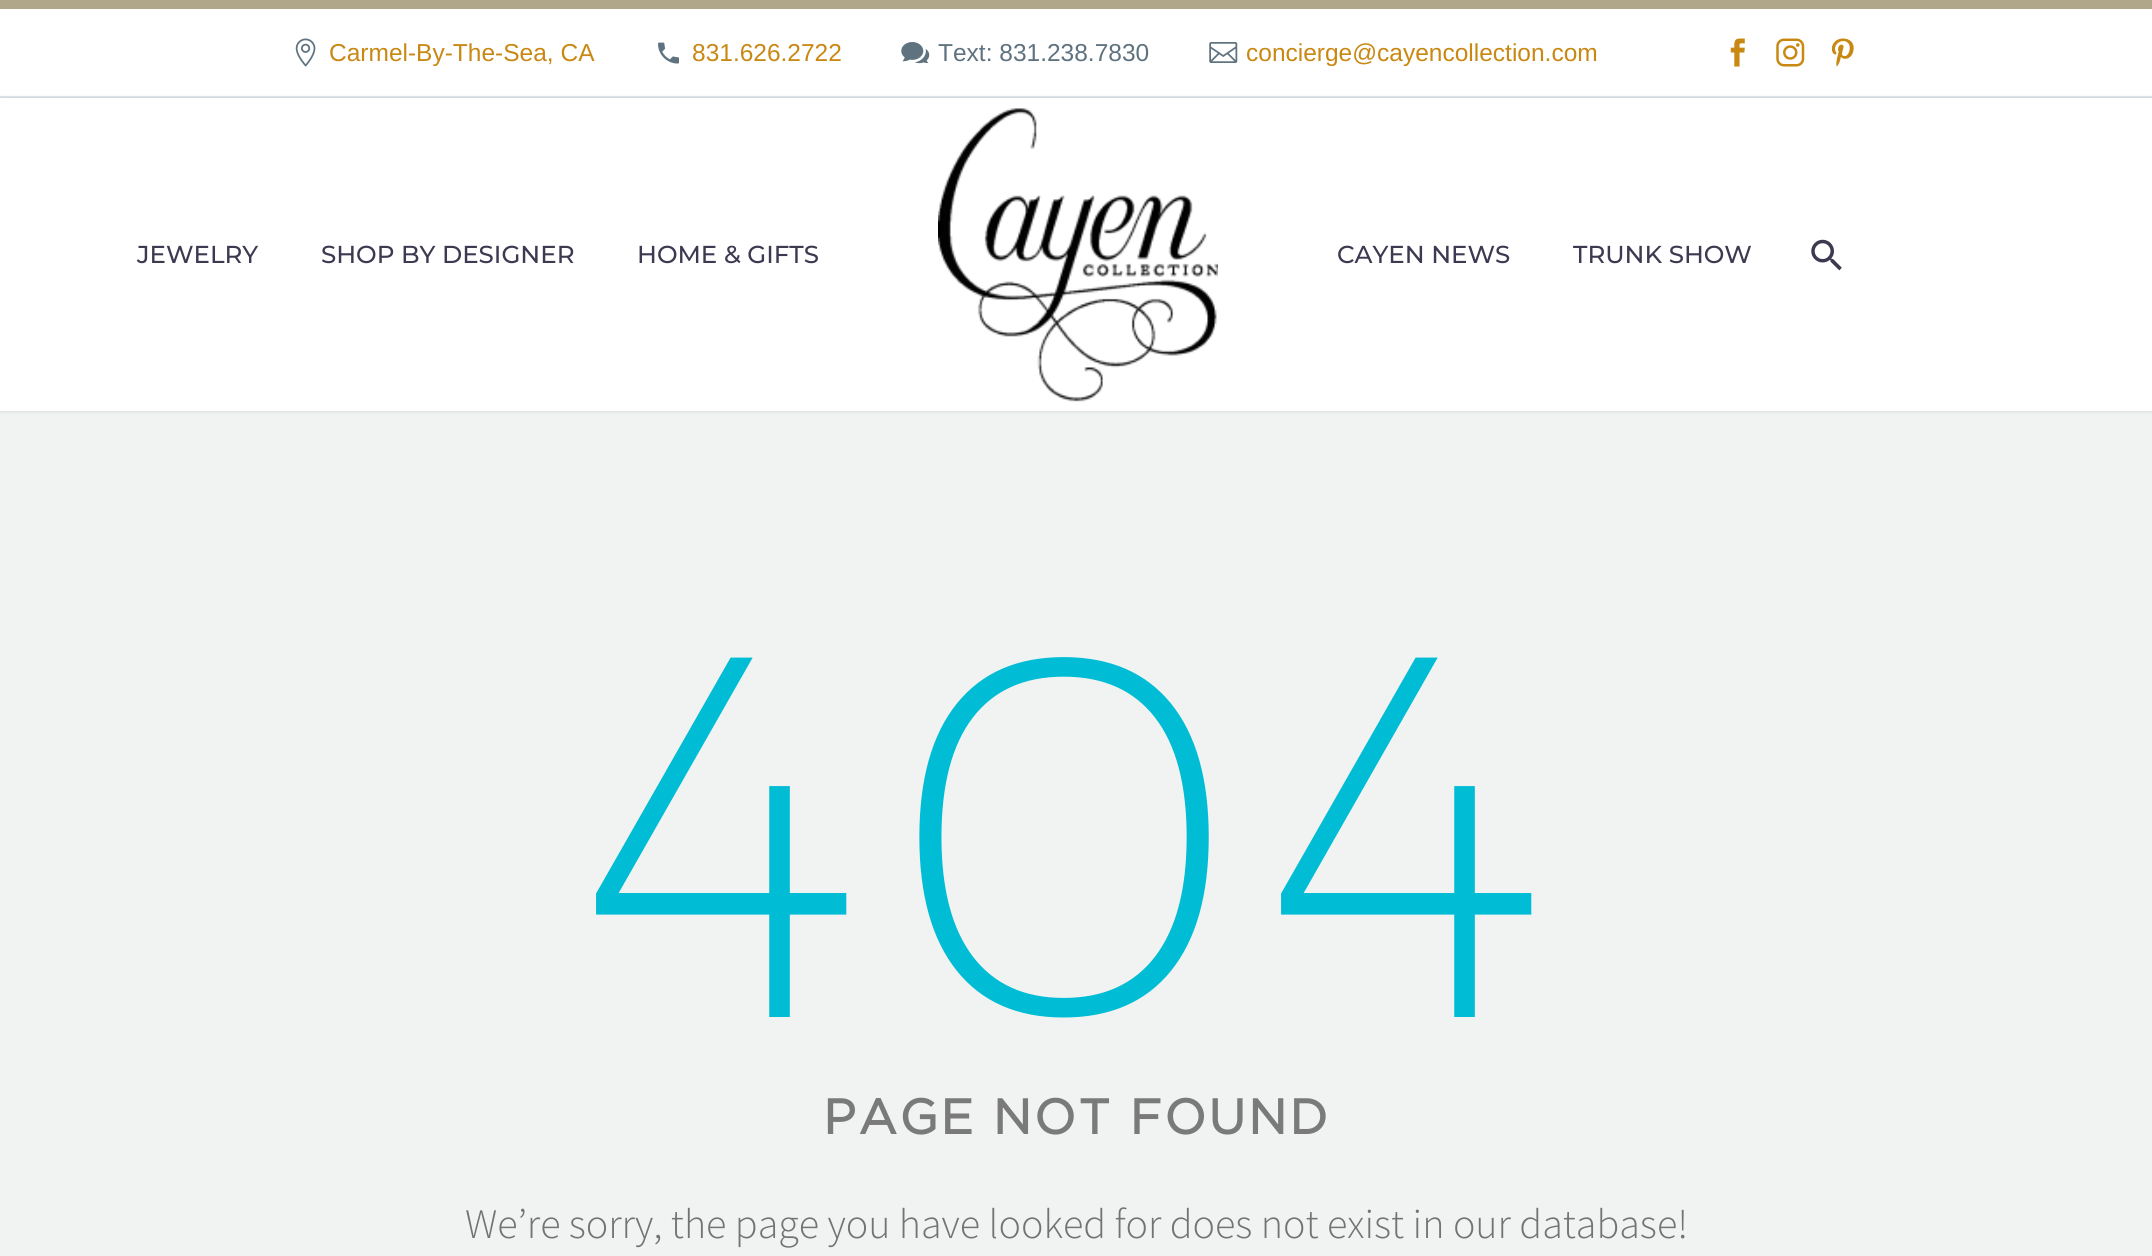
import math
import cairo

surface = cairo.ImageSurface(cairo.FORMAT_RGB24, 2152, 1256)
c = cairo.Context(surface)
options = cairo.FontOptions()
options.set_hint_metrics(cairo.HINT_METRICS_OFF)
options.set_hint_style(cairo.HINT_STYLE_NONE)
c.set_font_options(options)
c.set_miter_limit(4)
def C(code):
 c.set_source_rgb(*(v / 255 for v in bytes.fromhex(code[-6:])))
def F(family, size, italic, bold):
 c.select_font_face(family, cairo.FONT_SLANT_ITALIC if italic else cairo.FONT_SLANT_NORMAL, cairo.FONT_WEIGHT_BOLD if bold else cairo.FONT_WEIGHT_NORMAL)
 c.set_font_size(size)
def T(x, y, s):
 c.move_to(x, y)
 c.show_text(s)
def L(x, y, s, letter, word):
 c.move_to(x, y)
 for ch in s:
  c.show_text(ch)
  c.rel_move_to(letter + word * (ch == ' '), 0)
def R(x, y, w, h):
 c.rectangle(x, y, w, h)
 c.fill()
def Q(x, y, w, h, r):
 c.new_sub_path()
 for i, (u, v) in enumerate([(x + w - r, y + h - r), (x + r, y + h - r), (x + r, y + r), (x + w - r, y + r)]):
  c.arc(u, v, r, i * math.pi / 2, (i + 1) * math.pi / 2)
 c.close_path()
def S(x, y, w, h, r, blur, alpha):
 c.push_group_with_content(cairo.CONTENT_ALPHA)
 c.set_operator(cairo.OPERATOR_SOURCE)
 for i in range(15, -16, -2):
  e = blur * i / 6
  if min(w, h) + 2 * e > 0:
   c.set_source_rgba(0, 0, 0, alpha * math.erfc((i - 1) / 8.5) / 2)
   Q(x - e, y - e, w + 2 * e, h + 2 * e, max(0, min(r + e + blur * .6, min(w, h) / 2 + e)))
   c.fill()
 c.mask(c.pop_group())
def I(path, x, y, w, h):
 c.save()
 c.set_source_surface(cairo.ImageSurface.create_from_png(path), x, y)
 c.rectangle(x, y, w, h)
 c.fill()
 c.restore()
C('ffffff')
c.paint()
C('b0a78b')
R(0,0,2152,9)
C('e3e9ec')
R(0,96,2152,2)
I('1.png',295,38,21,29)
F('Liberation Sans',24.5,0,0)
C('c88812')
T(329,61,'Carmel-By-The-Sea, CA')
I('2.png',658,42,21,22)
T(692,61,'831.626.2722')
I('3.png',901,42,29,22)
C('5f727f')
T(938,61,'Text: 831.238.7830')
I('4.png',1209,42,29,21)
C('c88812')
T(1246,61,'concierge@cayencollection.com')
I('5.png',1730,38,15,29)
I('6.png',1776,38,29,29)
I('7.png',1831,38,23,29)
C('f0f3f2')
R(0,411,2152,845)
c.save()
c.set_fill_rule(cairo.FILL_RULE_EVEN_ODD)
c.new_path()
c.move_to(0,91)
c.line_to(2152,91)
c.line_to(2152,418)
c.line_to(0,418)
c.close_path()
c.move_to(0,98)
c.line_to(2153,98)
c.line_to(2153,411)
c.line_to(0,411)
c.close_path()
c.clip()
C('384554')
S(0,98,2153,313,0,2,.2)
c.restore()
F('Montserrat Medium',24.5,0,0)
C('3c3950')
T(137,263,'JEWELRY')
T(321,263,'SHOP BY DESIGNER')
T(637,263,'HOME & GIFTS')
I('8.png',938,108,280,294)
T(1337,263,'CAYEN NEWS')
T(1573,263,'TRUNK SHOW')
I('9.png',1811,239,31,32)
F('Montserrat ExtraLight',514,0,0)
C('00bcd4')
L(579,1017,'404',26,0)
F('Gotham',49,0,1)
C('7a7a7a')
L(823,1134,'PAGE NOT FOUND',2.5,0)
F('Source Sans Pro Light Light',42,0,0)
C('737373')
T(465,1238,'We’re sorry, the page you have looked for does not exist in our database!')
surface.write_to_png('o.png')
